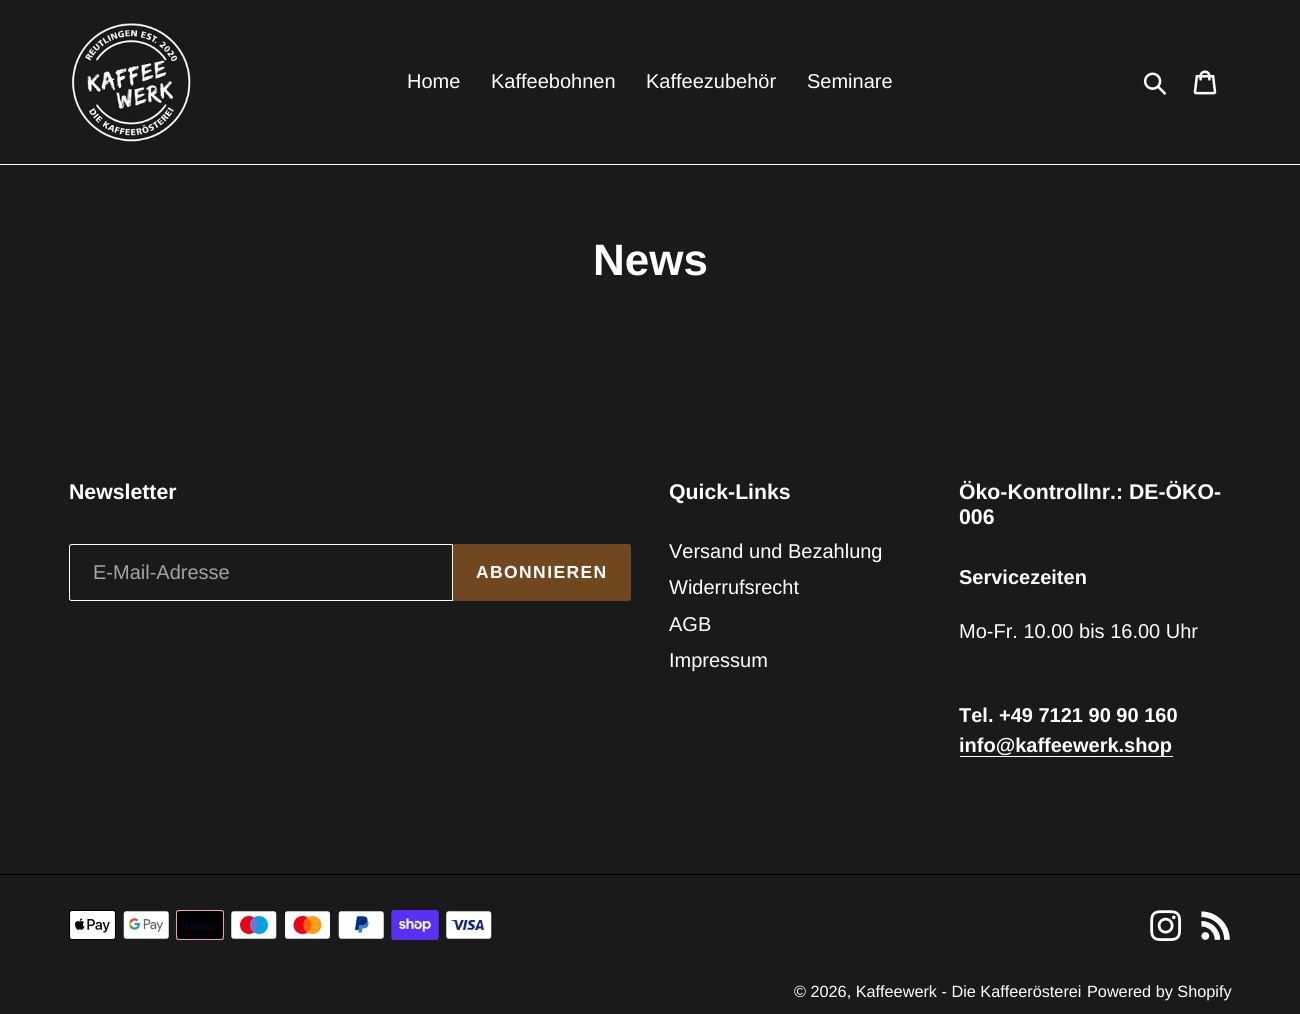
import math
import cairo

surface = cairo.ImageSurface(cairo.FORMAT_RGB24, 1300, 1014)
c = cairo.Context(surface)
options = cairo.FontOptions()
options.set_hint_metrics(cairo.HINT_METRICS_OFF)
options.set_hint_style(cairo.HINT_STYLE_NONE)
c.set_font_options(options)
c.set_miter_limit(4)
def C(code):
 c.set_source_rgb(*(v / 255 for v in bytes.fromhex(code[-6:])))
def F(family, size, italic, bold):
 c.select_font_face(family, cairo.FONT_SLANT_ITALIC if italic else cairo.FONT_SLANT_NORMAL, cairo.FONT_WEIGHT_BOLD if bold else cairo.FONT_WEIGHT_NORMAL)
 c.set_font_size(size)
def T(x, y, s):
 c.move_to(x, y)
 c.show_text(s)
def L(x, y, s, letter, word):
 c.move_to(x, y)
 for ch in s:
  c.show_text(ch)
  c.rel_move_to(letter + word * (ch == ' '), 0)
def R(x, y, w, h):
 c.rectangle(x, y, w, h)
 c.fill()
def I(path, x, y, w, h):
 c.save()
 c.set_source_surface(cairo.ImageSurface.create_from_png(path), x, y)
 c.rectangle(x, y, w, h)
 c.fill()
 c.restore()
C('1a1a1a')
c.paint()
C('ffffff')
R(0,164,1300,1)
I('1.png',71,22,120,120)
F('Liberation Sans',20,0,0)
T(407,88,'Home')
T(491,88,'Kaffeebohnen')
T(646,88,'Kaffeezubehör')
T(807,88,'Seminare')
I('2.png',1143,72,23,23)
I('3.png',1193,70,24,25)
F('Liberation Sans',44,0,1)
T(593,275,'News')
F('Liberation Sans',21.25,0,1)
T(69,499,'Newsletter')
c.new_path()
c.move_to(71.5,544.5)
c.line_to(452.5,544.5)
c.line_to(452.5,600.5)
c.line_to(71.5,600.5)
c.curve_to(70.5,600.5,69.5,599.5,69.5,598.5)
c.line_to(69.5,546.5)
c.curve_to(69.5,545.5,70.5,544.5,71.5,544.5)
c.close_path()
c.set_line_width(1)
c.stroke()
F('Liberation Sans',20,0,0)
C('a3a3a3')
T(93,579,'E-Mail-Adresse')
C('70471f')
c.new_path()
c.move_to(453,544)
c.line_to(628.5,544)
c.curve_to(630,544,631,545,631,546.5)
c.line_to(631,598.5)
c.curve_to(631,600,630,601,628.5,601)
c.line_to(453,601)
c.close_path()
c.fill()
F('Liberation Sans',17.5,0,1)
C('ffffff')
L(476,578,'ABONNIEREN',1.4,0)
F('Liberation Sans',21.25,0,1)
T(669,499,'Quick-Links')
F('Liberation Sans',20,0,0)
T(669,558,'Versand und Bezahlung')
T(669,594,'Widerrufsrecht')
T(669,631,'AGB')
T(669,667,'Impressum')
F('Liberation Sans',21.25,0,1)
T(959,499,'Öko-Kontrollnr.: DE-ÖKO-')
T(959,524,'006')
F('Liberation Sans',20,0,1)
T(959,584,'Servicezeiten')
F('Liberation Sans',20,0,0)
T(959,638,'Mo-Fr. 10.00 bis 16.00 Uhr')
F('Liberation Sans',20,0,1)
T(959,722,'Tel. +49 7121 90 90 160')
R(960,756,213,1)
T(959,752,'info@kaffeewerk.shop')
C('000000')
R(0,874,1300,1)
I('4.png',69,910,47,30)
I('5.png',123,911,46,28)
I('6.png',176,910,48,30)
I('7.png',231,911,46,28)
I('8.png',285,911,45,28)
I('9.png',338,911,46,28)
I('10.png',391,910,48,30)
I('11.png',446,911,46,28)
I('12.png',1150,910,31,31)
I('13.png',1201,911,29,29)
F('Liberation Sans',16.25,0,0)
C('ffffff')
T(794,997,'© 2026, Kaffeewerk - Die Kaffeerösterei')
T(1087,997,'Powered by Shopify')
surface.write_to_png('o.png')
